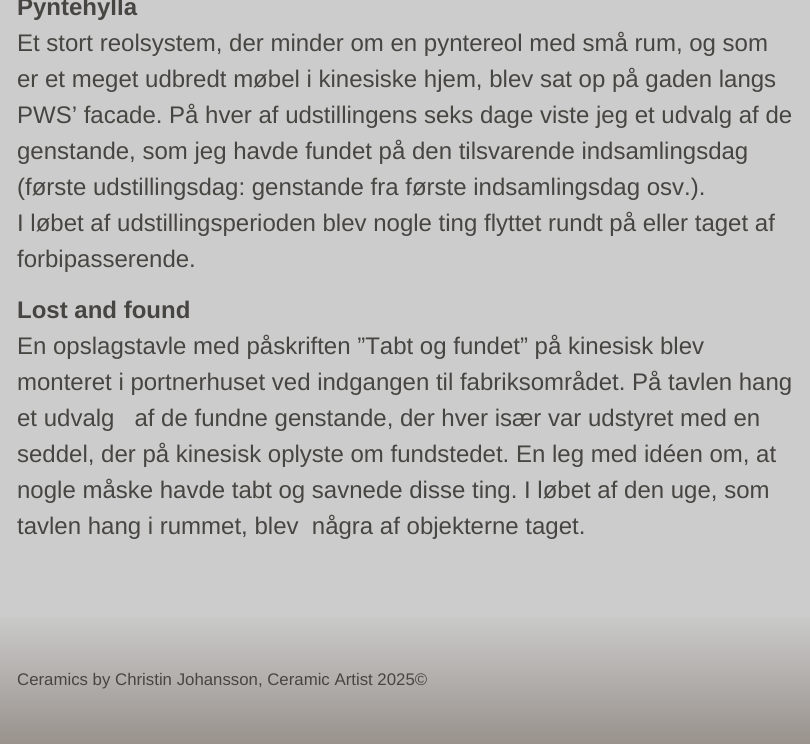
import math
import cairo

surface = cairo.ImageSurface(cairo.FORMAT_RGB24, 810, 744)
c = cairo.Context(surface)
options = cairo.FontOptions()
options.set_hint_metrics(cairo.HINT_METRICS_OFF)
options.set_hint_style(cairo.HINT_STYLE_NONE)
c.set_font_options(options)
c.set_miter_limit(4)
def C(code):
 c.set_source_rgb(*(v / 255 for v in bytes.fromhex(code[-6:])))
def F(family, size, italic, bold):
 c.select_font_face(family, cairo.FONT_SLANT_ITALIC if italic else cairo.FONT_SLANT_NORMAL, cairo.FONT_WEIGHT_BOLD if bold else cairo.FONT_WEIGHT_NORMAL)
 c.set_font_size(size)
def T(x, y, s):
 c.move_to(x, y)
 c.show_text(s)
def R(x, y, w, h):
 c.rectangle(x, y, w, h)
 c.fill()
C('cccccc')
c.paint()
F('Liberation Sans',24,0,1)
C('474542')
T(17,15,'Pyntehylla')
F('Liberation Sans',24,0,0)
T(17,51,'Et stort reolsystem, der minder om en pyntereol med små rum, og som')
T(17,87,'er et meget udbredt møbel i kinesiske hjem, blev sat op på gaden langs')
T(17,123,'PWS’ facade. På hver af udstillingens seks dage viste jeg et udvalg af de')
T(17,159,'genstande, som jeg havde fundet på den tilsvarende indsamlingsdag')
T(17,195,'(første udstillingsdag: genstande fra første indsamlingsdag osv.).')
T(17,231,'I løbet af udstillingsperioden blev nogle ting flyttet rundt på eller taget af')
T(17,267,'forbipasserende.')
F('Liberation Sans',24,0,1)
T(17,318,'Lost and found')
F('Liberation Sans',24,0,0)
T(17,354,'En opslagstavle med påskriften ”Tabt og fundet” på kinesisk blev')
T(17,390,'monteret i portnerhuset ved indgangen til fabriksområdet. På tavlen hang')
T(17,426,'et udvalg   af de fundne genstande, der hver især var udstyret med en')
T(17,462,'seddel, der på kinesisk oplyste om fundstedet. En leg med idéen om, at')
T(17,498,'nogle måske havde tabt og savnede disse ting. I løbet af den uge, som')
T(17,534,'tavlen hang i rummet, blev  några af objekterne taget.')
gradient = cairo.LinearGradient(405,612,405,744)
gradient.add_color_stop_rgba(0,0.8,0.8,0.8,1)
gradient.add_color_stop_rgba(1,0.6,0.573,0.553,1)
c.set_source(gradient)
R(0,617,810,127)
F('Liberation Sans',16.8,0,0)
C('474542')
T(17,685,'Ceramics by Christin Johansson, Ceramic Artist 2025©')
surface.write_to_png('o.png')
